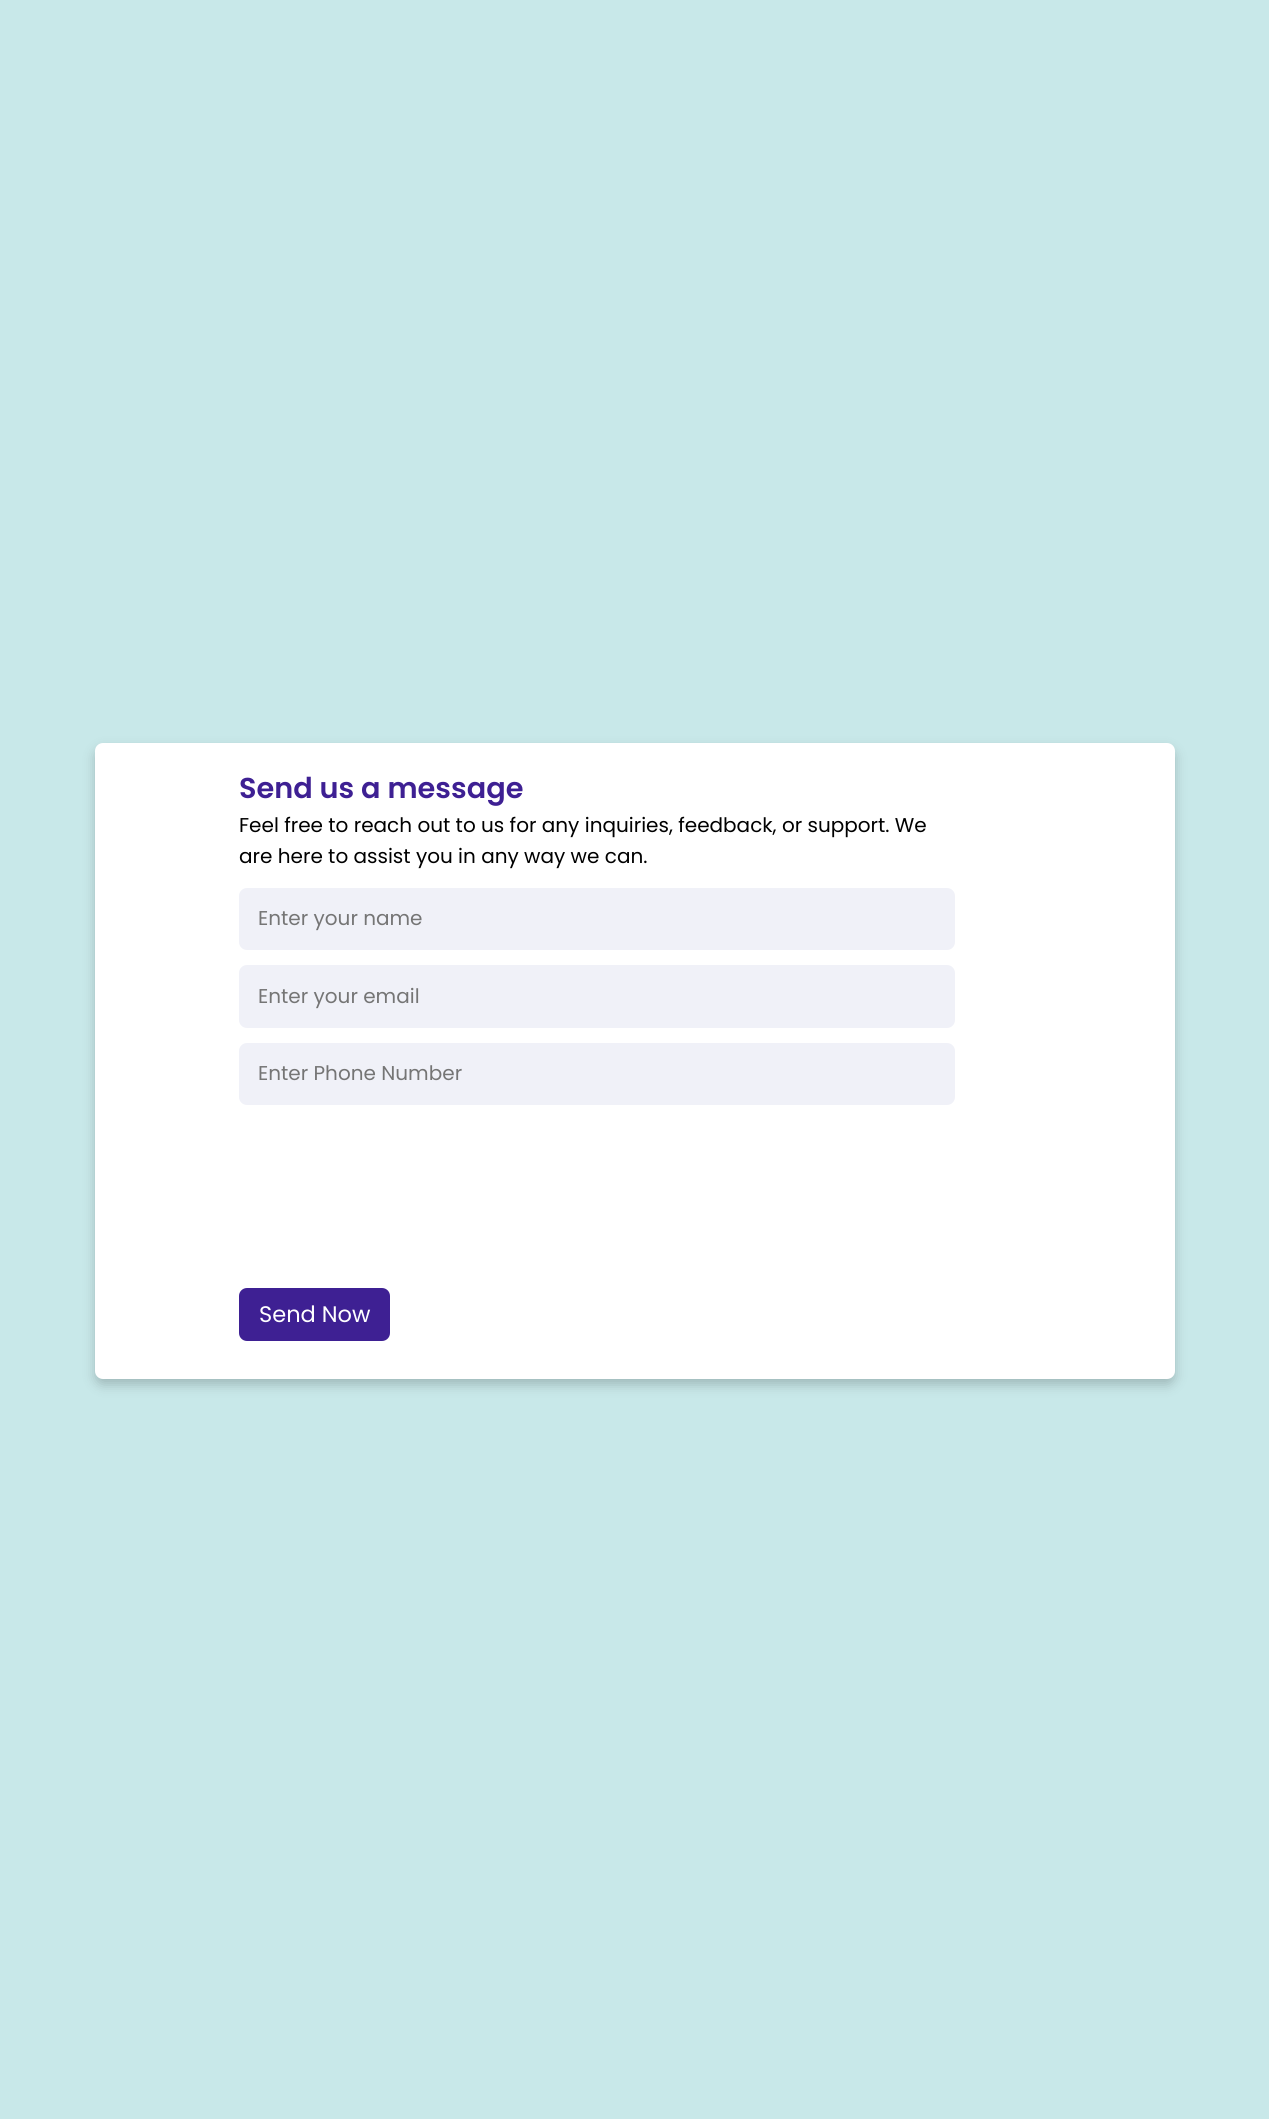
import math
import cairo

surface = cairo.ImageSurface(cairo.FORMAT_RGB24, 1269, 2119)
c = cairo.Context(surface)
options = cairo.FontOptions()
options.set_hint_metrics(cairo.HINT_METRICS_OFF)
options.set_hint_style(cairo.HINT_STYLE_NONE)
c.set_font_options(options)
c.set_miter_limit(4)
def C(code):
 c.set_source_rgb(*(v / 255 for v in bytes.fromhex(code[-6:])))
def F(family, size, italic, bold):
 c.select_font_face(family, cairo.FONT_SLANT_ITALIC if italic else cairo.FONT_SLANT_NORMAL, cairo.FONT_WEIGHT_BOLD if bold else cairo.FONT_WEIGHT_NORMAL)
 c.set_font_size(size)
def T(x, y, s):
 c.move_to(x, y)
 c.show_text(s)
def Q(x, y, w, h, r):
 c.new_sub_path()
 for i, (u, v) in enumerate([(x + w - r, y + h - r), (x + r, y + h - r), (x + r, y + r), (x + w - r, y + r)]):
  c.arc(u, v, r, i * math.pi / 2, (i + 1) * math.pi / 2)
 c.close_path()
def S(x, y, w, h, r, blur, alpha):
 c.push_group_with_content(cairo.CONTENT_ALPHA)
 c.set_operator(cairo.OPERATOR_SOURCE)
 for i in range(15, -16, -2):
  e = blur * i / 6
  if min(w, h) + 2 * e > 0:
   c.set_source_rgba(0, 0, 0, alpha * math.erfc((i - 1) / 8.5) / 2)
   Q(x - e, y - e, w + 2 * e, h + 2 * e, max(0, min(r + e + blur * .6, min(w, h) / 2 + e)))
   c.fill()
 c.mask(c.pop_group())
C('c8e8e9')
c.paint()
C('000000')
S(95,749,1080,636,8,6,.2)
C('ffffff')
Q(95,743,1080,636,8)
c.fill()
F('Poppins SemiBold',28.75,0,0)
C('3e2093')
T(239,798,'Send us a message')
F('Poppins',20,0,0)
C('000000')
T(239,832,'Feel free to reach out to us for any inquiries, feedback, or support. We')
T(239,863,'are here to assist you in any way we can.')
C('f0f1f8')
Q(239,888,716,62,8)
c.fill()
C('757575')
T(258,925,'Enter your name')
C('f0f1f8')
Q(239,965,716,63,8)
c.fill()
C('757575')
T(258,1003,'Enter your email')
C('f0f1f8')
Q(239,1043,716,62,8)
c.fill()
C('757575')
T(258,1080,'Enter Phone Number')
C('3e2093')
Q(239,1288,151,53,8)
c.fill()
F('Poppins',22.5,0,0)
C('ffffff')
T(259,1322,'Send Now')
surface.write_to_png('o.png')
